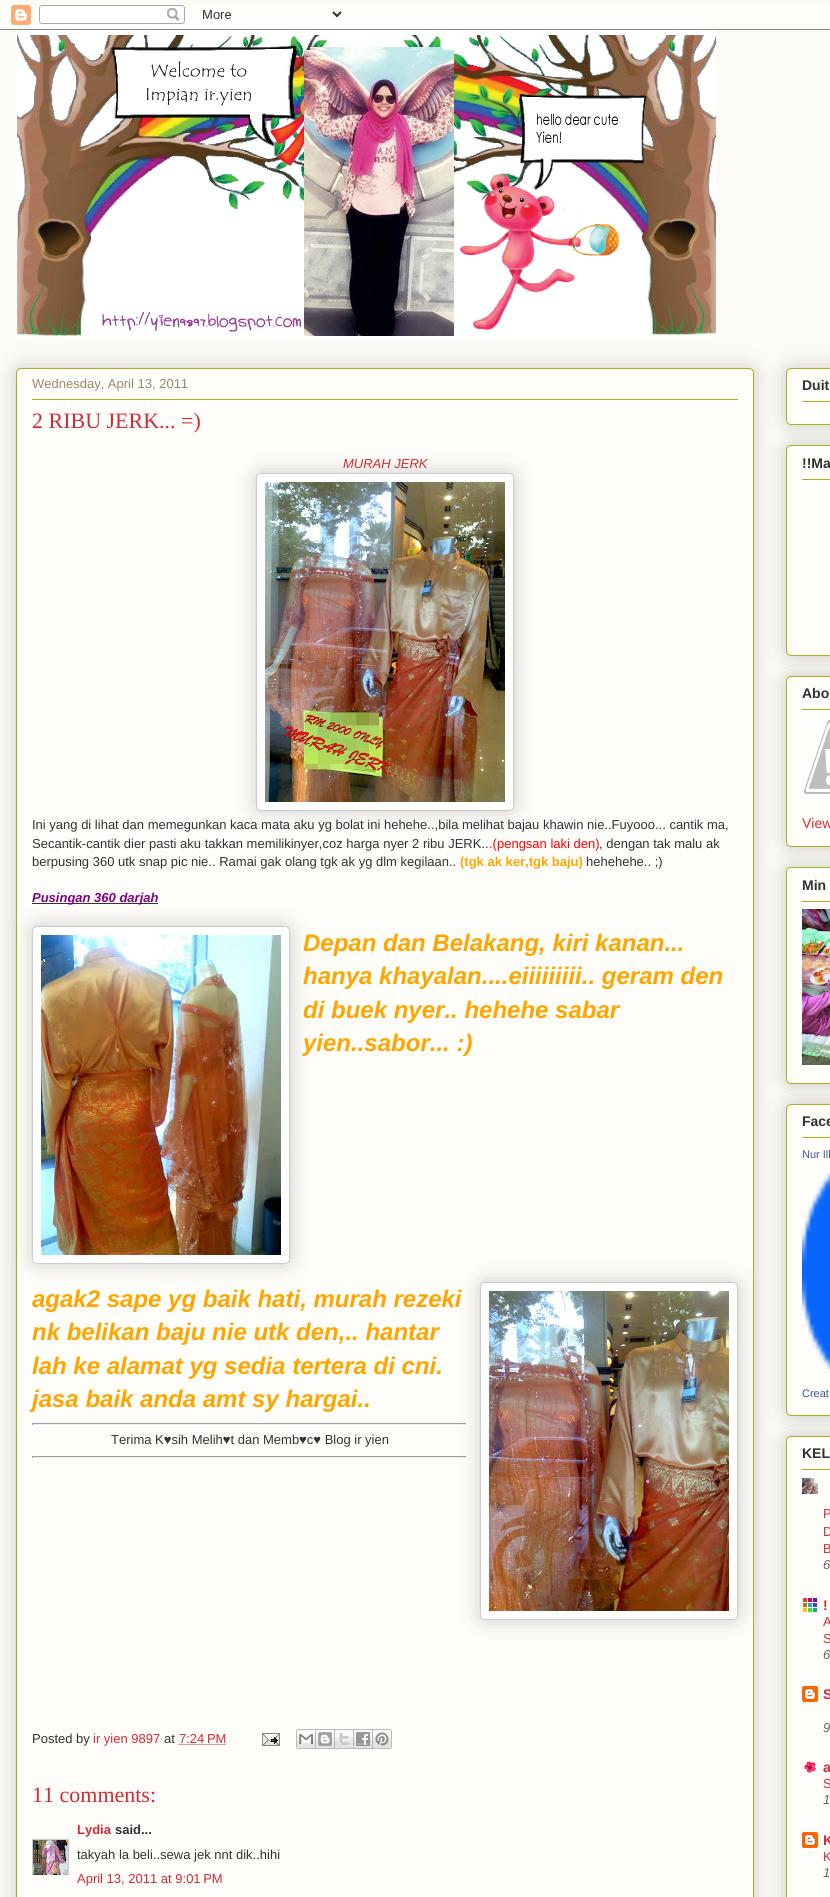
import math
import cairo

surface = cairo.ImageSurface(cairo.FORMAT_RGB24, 830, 1897)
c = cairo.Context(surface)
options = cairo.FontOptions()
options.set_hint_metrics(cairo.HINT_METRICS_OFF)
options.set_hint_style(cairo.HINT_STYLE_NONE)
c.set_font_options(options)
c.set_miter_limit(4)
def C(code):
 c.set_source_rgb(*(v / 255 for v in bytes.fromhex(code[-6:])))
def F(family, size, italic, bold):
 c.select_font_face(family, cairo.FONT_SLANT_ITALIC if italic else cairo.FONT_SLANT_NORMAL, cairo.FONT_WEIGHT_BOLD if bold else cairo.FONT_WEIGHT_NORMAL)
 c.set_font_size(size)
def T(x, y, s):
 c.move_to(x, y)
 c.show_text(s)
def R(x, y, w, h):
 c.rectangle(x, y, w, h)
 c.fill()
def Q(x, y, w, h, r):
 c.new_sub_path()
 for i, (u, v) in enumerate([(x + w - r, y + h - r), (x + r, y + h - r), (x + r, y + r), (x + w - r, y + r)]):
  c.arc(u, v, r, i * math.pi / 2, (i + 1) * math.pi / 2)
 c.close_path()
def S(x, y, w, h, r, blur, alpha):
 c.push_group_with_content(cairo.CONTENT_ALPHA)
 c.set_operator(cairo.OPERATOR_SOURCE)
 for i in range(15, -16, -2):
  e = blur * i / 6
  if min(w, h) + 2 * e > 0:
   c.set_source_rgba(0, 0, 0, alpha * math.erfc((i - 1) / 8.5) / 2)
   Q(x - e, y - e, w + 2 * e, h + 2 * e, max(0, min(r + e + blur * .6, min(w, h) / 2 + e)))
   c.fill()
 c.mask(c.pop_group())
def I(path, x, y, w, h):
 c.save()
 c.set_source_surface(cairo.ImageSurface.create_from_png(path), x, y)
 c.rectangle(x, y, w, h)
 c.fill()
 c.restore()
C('fcfbf5')
c.paint()
I('1.png',0,5,830,25)
I('2.png',16,30,700,308)
C('000000')
S(16,368,738,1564,5,10,.2)
C('fefdfa')
Q(16.5,368.5,737,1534,4.5)
c.fill_preserve()
C('aab123')
c.set_line_width(1)
c.stroke()
F('Liberation Sans',13,0,0)
C('908d6a')
T(32,388,'Wednesday, April 13, 2011')
C('aab123')
R(32,399,706,1)
F('Liberation Serif',22,0,0)
C('d52a33')
T(32,428,'2 RIBU JERK... =)')
C('000000')
S(256,473,258,338,5,10,.2)
C('ffffff')
Q(256.5,473.5,257,337,4.5)
c.fill_preserve()
C('cccccc')
c.stroke()
I('3.png',265,482,240,320)
F('Liberation Sans',13,1,0)
C('d52a33')
T(343,468,'MURAH JERK')
F('Liberation Sans',13,0,0)
C('333333')
T(32,829,'Ini yang di lihat dan memegunkan kaca mata aku yg bolat ini hehehe..,bila melihat bajau khawin nie..Fuyooo... cantik ma,')
T(32,848,'Secantik-cantik dier pasti aku takkan memilikinyer,coz harga nyer 2 ribu JERK..')
C('ff0000')
T(489,848,'.(pengsan laki den)')
C('333333')
T(599,848,', dengan tak malu ak')
T(32,866,'berpusing 360 utk snap pic nie.. Ramai gak olang tgk ak yg dlm kegilaan..')
F('Liberation Sans',13,0,1)
C('ffa500')
T(460,866,'(tgk ak ker,tgk baju)')
F('Liberation Sans',13,0,0)
C('333333')
T(586,866,'hehehehe.. ;)')
R(32,903,126,1)
F('Liberation Sans',13,1,1)
C('800080')
T(32,902,'Pusingan 360 darjah')
C('000000')
S(32,926,258,338,5,10,.2)
C('ffffff')
Q(32.5,926.5,257,337,4.5)
c.fill_preserve()
C('cccccc')
c.stroke()
I('4.png',41,935,240,320)
F('Liberation Sans',24,1,1)
C('ffa500')
T(303,951,'Depan dan Belakang, kiri kanan...')
T(303,984,'hanya khayalan....eiiiiiiiii.. geram den')
T(303,1018,'di buek nyer.. hehehe sabar')
T(303,1051,'yien..sabor... :)')
T(32,1307,'agak2 sape yg baik hati, murah rezeki')
C('9f9f9f')
R(32,1423,435,1)
C('eeeeee')
R(466,1423,1,2)
R(32,1424,435,1)
C('9f9f9f')
R(32,1456,435,1)
C('eeeeee')
R(466,1456,1,2)
R(32,1457,435,1)
C('000000')
S(480,1282,258,338,5,10,.2)
C('ffffff')
Q(480.5,1282.5,257,337,4.5)
c.fill_preserve()
C('cccccc')
c.stroke()
I('5.png',489,1291,240,320)
C('ffa500')
T(32,1340,'nk belikan baju nie utk den,.. hantar')
T(32,1374,'lah ke alamat yg sedia tertera di cni.')
T(32,1407,'jasa baik anda amt sy hargai..')
C('9f9f9f')
R(32,1423,1,2)
F('Liberation Sans',13,0,0)
C('333333')
T(111,1444,'Terima K♥sih Melih♥t dan Memb♥c♥ Blog ir yien')
C('9f9f9f')
R(32,1456,1,2)
C('333333')
T(32,1743,'Posted by')
C('d52a33')
T(93,1743,'ir yien 9897')
C('333333')
T(164,1743,'at')
c.new_path()
c.move_to(178.5,1744.5)
c.line_to(226,1744.5)
C('d52a33')
c.set_dash([1,1])
c.stroke()
T(179,1743,'7:24 PM')
I('6.png',262,1733,18,13)
I('7.png',296,1729,20,20)
I('8.png',316,1729,19,20)
I('9.png',335,1729,19,20)
I('10.png',354,1729,19,20)
I('11.png',373,1729,19,20)
F('Liberation Serif',22,0,0)
T(32,1802,'11 comments:')
F('Liberation Sans',13,0,1)
T(77,1834,'Lydia')
C('333333')
T(115,1834,'said...')
c.save()
c.rectangle(32,1839,37,36)
c.clip()
c.rectangle(32.5,1839.5,36,36)
C('cccccc')
c.set_dash([])
c.stroke()
c.restore()
I('12.png',33,1840,35,35)
F('Liberation Sans',13,0,0)
T(77,1859,'takyah la beli..sewa jek nnt dik..hihi')
C('d52a33')
T(77,1883,'April 13, 2011 at 9:01 PM')
C('000000')
S(786,368,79,57,5,10,.2)
C('fefdfa')
Q(786.5,368.5,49,56,4.5)
c.fill_preserve()
C('aab123')
c.set_dash([])
c.stroke()
F('Liberation Sans',14,0,1)
C('333333')
T(802,390,'Duit')
C('aab123')
R(802,401,28,1)
C('000000')
S(786,445,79,211,5,10,.2)
C('fefdfa')
Q(786.5,445.5,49,210,4.5)
c.fill_preserve()
C('aab123')
c.stroke()
C('333333')
T(802,468,'!!Ma')
C('aab123')
R(802,479,28,1)
C('000000')
S(786,676,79,171,5,10,.2)
C('fefdfa')
Q(786.5,676.5,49,170,4.5)
c.fill_preserve()
C('aab123')
c.stroke()
C('333333')
T(802,698,'Abo')
C('aab123')
R(802,709,28,1)
I('13.png',804,720,26,74)
F('Liberation Sans',14,0,0)
C('d52a33')
T(802,828,'View')
C('000000')
S(786,867,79,217,5,10,.2)
C('fefdfa')
Q(786.5,867.5,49,216,4.5)
c.fill_preserve()
C('aab123')
c.stroke()
F('Liberation Sans',14,0,1)
C('333333')
T(802,890,'Min')
C('aab123')
R(802,901,28,1)
I('14.png',802,909,28,156)
C('000000')
S(786,1104,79,312,5,10,.2)
C('fefdfa')
Q(786.5,1104.5,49,311,4.5)
c.fill_preserve()
C('aab123')
c.stroke()
C('333333')
T(802,1126,'Face')
C('aab123')
R(802,1137,28,1)
F('Liberation Sans',11,0,0)
C('3b5998')
T(802,1158,'Nur Ill')
I('15.png',802,1172,28,199)
T(802,1397,'Creat')
C('000000')
S(786,1436,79,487,5,10,.2)
C('fefdfa')
Q(786.5,1436.5,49,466,4.5)
c.fill_preserve()
C('aab123')
c.stroke()
F('Liberation Sans',14,0,1)
C('333333')
T(802,1458,'KEL')
C('aab123')
R(802,1469,28,1)
I('16.png',802,1478,16,16)
F('Liberation Sans',13,0,0)
C('d52a33')
T(823,1518,'P')
T(823,1536,'D')
T(823,1553,'B')
F('Liberation Sans',13,1,0)
C('666666')
T(823,1569,'6')
I('17.png',803,1598,14,14)
F('Liberation Sans',14,0,1)
C('d52a33')
T(823,1610,'!')
F('Liberation Sans',13,0,0)
T(823,1626,'A')
T(823,1643,'S')
F('Liberation Sans',13,1,0)
C('666666')
T(823,1659,'6')
I('18.png',802,1686,16,16)
F('Liberation Sans',14,0,1)
C('d52a33')
T(823,1699,'S')
F('Liberation Sans',13,1,0)
C('666666')
T(823,1732,'9')
I('19.png',804,1761,12,12)
F('Liberation Sans',14,0,1)
C('d52a33')
T(823,1772,'a')
F('Liberation Sans',13,0,0)
T(823,1788,'S')
F('Liberation Sans',13,1,0)
C('666666')
T(823,1804,'1')
I('18.png',802,1832,16,16)
F('Liberation Sans',14,0,1)
C('d52a33')
T(823,1845,'K')
F('Liberation Sans',13,0,0)
T(823,1861,'K')
F('Liberation Sans',13,1,0)
C('666666')
T(823,1877,'1')
surface.write_to_png('o.png')
